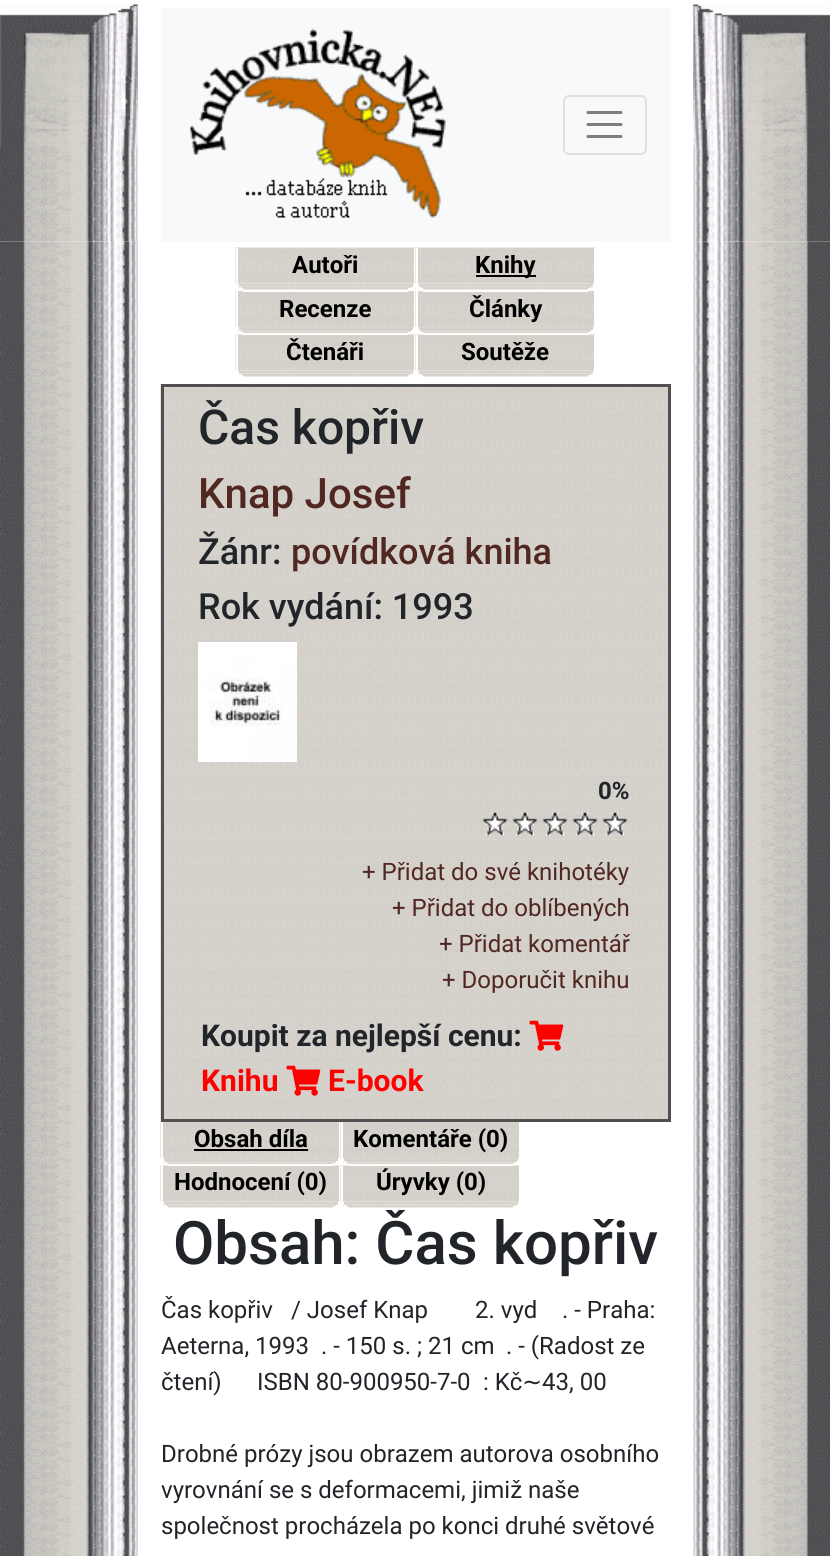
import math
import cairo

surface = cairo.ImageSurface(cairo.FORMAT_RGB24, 830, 1556)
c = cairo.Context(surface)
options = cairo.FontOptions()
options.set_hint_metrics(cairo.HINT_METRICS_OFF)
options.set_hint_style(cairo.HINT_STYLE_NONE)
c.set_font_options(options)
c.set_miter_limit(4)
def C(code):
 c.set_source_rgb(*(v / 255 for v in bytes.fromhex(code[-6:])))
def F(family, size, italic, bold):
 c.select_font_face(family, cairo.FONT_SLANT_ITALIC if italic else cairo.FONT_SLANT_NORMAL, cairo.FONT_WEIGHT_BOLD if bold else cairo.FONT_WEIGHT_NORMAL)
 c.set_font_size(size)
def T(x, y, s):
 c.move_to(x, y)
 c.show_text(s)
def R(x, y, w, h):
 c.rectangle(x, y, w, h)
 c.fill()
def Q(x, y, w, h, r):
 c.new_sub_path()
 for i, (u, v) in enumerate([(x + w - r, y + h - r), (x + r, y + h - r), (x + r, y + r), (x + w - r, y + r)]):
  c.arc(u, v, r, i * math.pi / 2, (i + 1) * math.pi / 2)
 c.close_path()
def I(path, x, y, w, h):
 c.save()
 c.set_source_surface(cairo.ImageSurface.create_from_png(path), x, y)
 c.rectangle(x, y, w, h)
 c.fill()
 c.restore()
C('ffffff')
c.paint()
I('1.png',0,4,138,238)
C('f8f9fa')
R(161,8,510,234)
I('2.png',190,28,256,190)
Q(564,96,82,58,5)
C('dfe0e1')
c.stroke()
c.new_path()
c.move_to(588,112.5)
c.line_to(621,112.5)
c.move_to(588,124.5)
c.line_to(621,124.5)
c.move_to(588,136.5)
c.line_to(621,136.5)
C('7c7d7d')
c.set_line_width(3)
c.set_line_cap(cairo.LINE_CAP_ROUND)
c.stroke()
I('3.png',693,4,137,238)
I('4.png',0,241,138,143)
I('5.png',235,247,181,37)
C('ffffff')
R(414,248,2,36)
R(236,248,2,36)
F('Roboto',24,0,1)
C('000000')
T(292,273,'Autoři')
I('6.png',237,283,177,4)
C('ffffff')
R(413,284,1,3)
R(237,284,2,3)
I('7.png',238,286,175,2)
R(411,287,2,1)
R(239,287,2,1)
I('8.png',243,288,165,2)
I('10.png',235,291,179,36)
R(243,291,165,1)
I('9.png',415,247,181,37)
R(594,248,2,36)
R(416,248,2,36)
C('000000')
R(476,275,60,2)
T(475,273,'Knihy')
I('6.png',417,283,177,4)
C('ffffff')
R(593,284,1,3)
R(417,284,2,3)
I('7.png',418,286,175,2)
R(591,287,2,1)
R(419,287,2,1)
I('8.png',423,288,165,2)
I('10.png',415,291,179,36)
R(423,291,165,1)
R(236,291,2,36)
C('000000')
T(279,317,'Recenze')
I('11.png',239,327,174,3)
I('12.png',238,330,173,2)
C('ffffff')
R(239,330,2,2)
I('13.png',240,331,171,2)
R(408,332,3,1)
R(240,332,3,1)
I('5.png',235,334,181,37)
R(243,334,165,1)
R(416,291,2,36)
C('000000')
T(469,317,'Články')
I('11.png',419,327,174,3)
I('12.png',418,330,173,2)
C('ffffff')
R(419,330,2,2)
I('13.png',420,331,171,2)
R(588,332,3,1)
R(420,332,3,1)
R(414,335,2,36)
I('9.png',415,334,181,37)
R(423,334,165,1)
R(236,335,2,36)
C('000000')
T(286,360,'Čtenáři')
I('6.png',237,370,177,4)
C('ffffff')
R(413,371,1,3)
R(237,371,2,3)
I('7.png',238,373,175,2)
R(411,374,2,1)
R(239,374,2,1)
I('8.png',243,375,165,2)
R(594,335,2,36)
R(416,335,2,36)
C('000000')
T(461,360,'Soutěže')
I('6.png',417,370,177,4)
C('ffffff')
R(593,371,1,3)
R(417,371,2,3)
I('7.png',418,373,175,2)
R(591,374,2,1)
R(419,374,2,1)
I('8.png',423,375,165,2)
I('14.png',693,241,137,143)
I('15.png',0,384,138,1172)
I('16.png',160,384,508,738)
c.rectangle(162.5,385.5,507,735)
C('505050')
c.set_line_cap(cairo.LINE_CAP_BUTT)
c.stroke()
F('Roboto Medium',48,0,0)
C('212529')
T(198,444,'Čas kopřiv')
F('Roboto Medium',42,0,0)
C('512721')
T(198,508,'Knap Josef')
F('Roboto Medium',36,0,0)
C('212529')
T(198,564,'Žánr:')
C('512721')
T(291,564,'povídková kniha')
C('212529')
T(198,619,'Rok vydání: 1993')
I('17.png',198,642,99,120)
F('Roboto',24,0,1)
T(598,799,'0%')
I('18.png',482,812,146,24)
F('Roboto',24,0,0)
C('512721')
T(362,880,'+ Přidat do své knihotéky')
T(392,916,'+ Přidat do oblíbených')
T(439,952,'+ Přidat komentář')
T(442,988,'+ Doporučit knihu')
F('Roboto',30,0,1)
C('212529')
T(201,1046,'Koupit za nejlepší cenu:')
I('19.png',529,1020,35,31)
C('ff0000')
T(201,1091,'Knihu')
I('20.png',286,1065,35,31)
T(328,1091,'E-book')
I('10.png',160,1122,179,36)
C('ffffff')
R(161,1122,2,36)
F('Roboto',24,0,1)
C('000000')
T(194,1147,'Obsah díla')
R(194,1149,114,2)
I('11.png',164,1158,174,3)
I('12.png',163,1161,173,2)
C('ffffff')
R(164,1161,2,2)
I('13.png',165,1162,171,2)
R(333,1163,3,1)
R(165,1163,3,1)
I('5.png',160,1165,181,37)
R(168,1165,165,1)
I('10.png',340,1122,179,36)
R(341,1122,2,36)
C('000000')
T(353,1147,'Komentáře (0)')
I('11.png',344,1158,174,3)
I('12.png',343,1161,173,2)
C('ffffff')
R(344,1161,2,2)
I('13.png',345,1162,171,2)
R(513,1163,3,1)
R(345,1163,3,1)
R(339,1166,2,36)
I('9.png',340,1165,181,37)
R(348,1165,165,1)
R(161,1166,2,36)
C('000000')
T(174,1190,'Hodnocení (0)')
I('6.png',162,1201,177,4)
C('ffffff')
R(338,1202,1,3)
R(162,1202,2,3)
I('7.png',163,1204,175,2)
R(336,1205,2,1)
R(164,1205,2,1)
I('8.png',168,1206,165,2)
R(519,1166,2,36)
R(341,1166,2,36)
C('000000')
T(376,1190,'Úryvky (0)')
I('6.png',342,1201,177,4)
C('ffffff')
R(518,1202,1,3)
R(342,1202,2,3)
I('7.png',343,1204,175,2)
R(516,1205,2,1)
R(344,1205,2,1)
I('8.png',348,1206,165,2)
F('Roboto Medium',60,0,0)
C('212529')
T(173,1264,'Obsah: Čas kopřiv')
C('ffffff')
R(385,1209,21,1)
F('Roboto',24,0,0)
C('212529')
T(161,1318,'Čas kopřiv')
T(291,1318,'/ Josef Knap')
T(475,1318,'2. vyd')
T(562,1318,'. - Praha:')
T(161,1354,'Aeterna, 1993')
T(321,1354,'. - 150 s. ; 21 cm')
T(506,1354,'. - (Radost ze')
T(161,1390,'čtení)')
T(257,1390,'ISBN 80-900950-7-0')
T(483,1390,': Kč')
F('DejaVu Sans',24,0,0)
T(522,1390,'∼')
F('Roboto',24,0,0)
T(542,1390,'43, 00')
T(161,1462,'Drobné prózy jsou obrazem autorova osobního')
T(161,1498,'vyrovnání se s deformacemi, jimiž naše')
T(161,1534,'společnost procházela po konci druhé světové')
I('21.png',693,384,137,1172)
surface.write_to_png('o.png')
